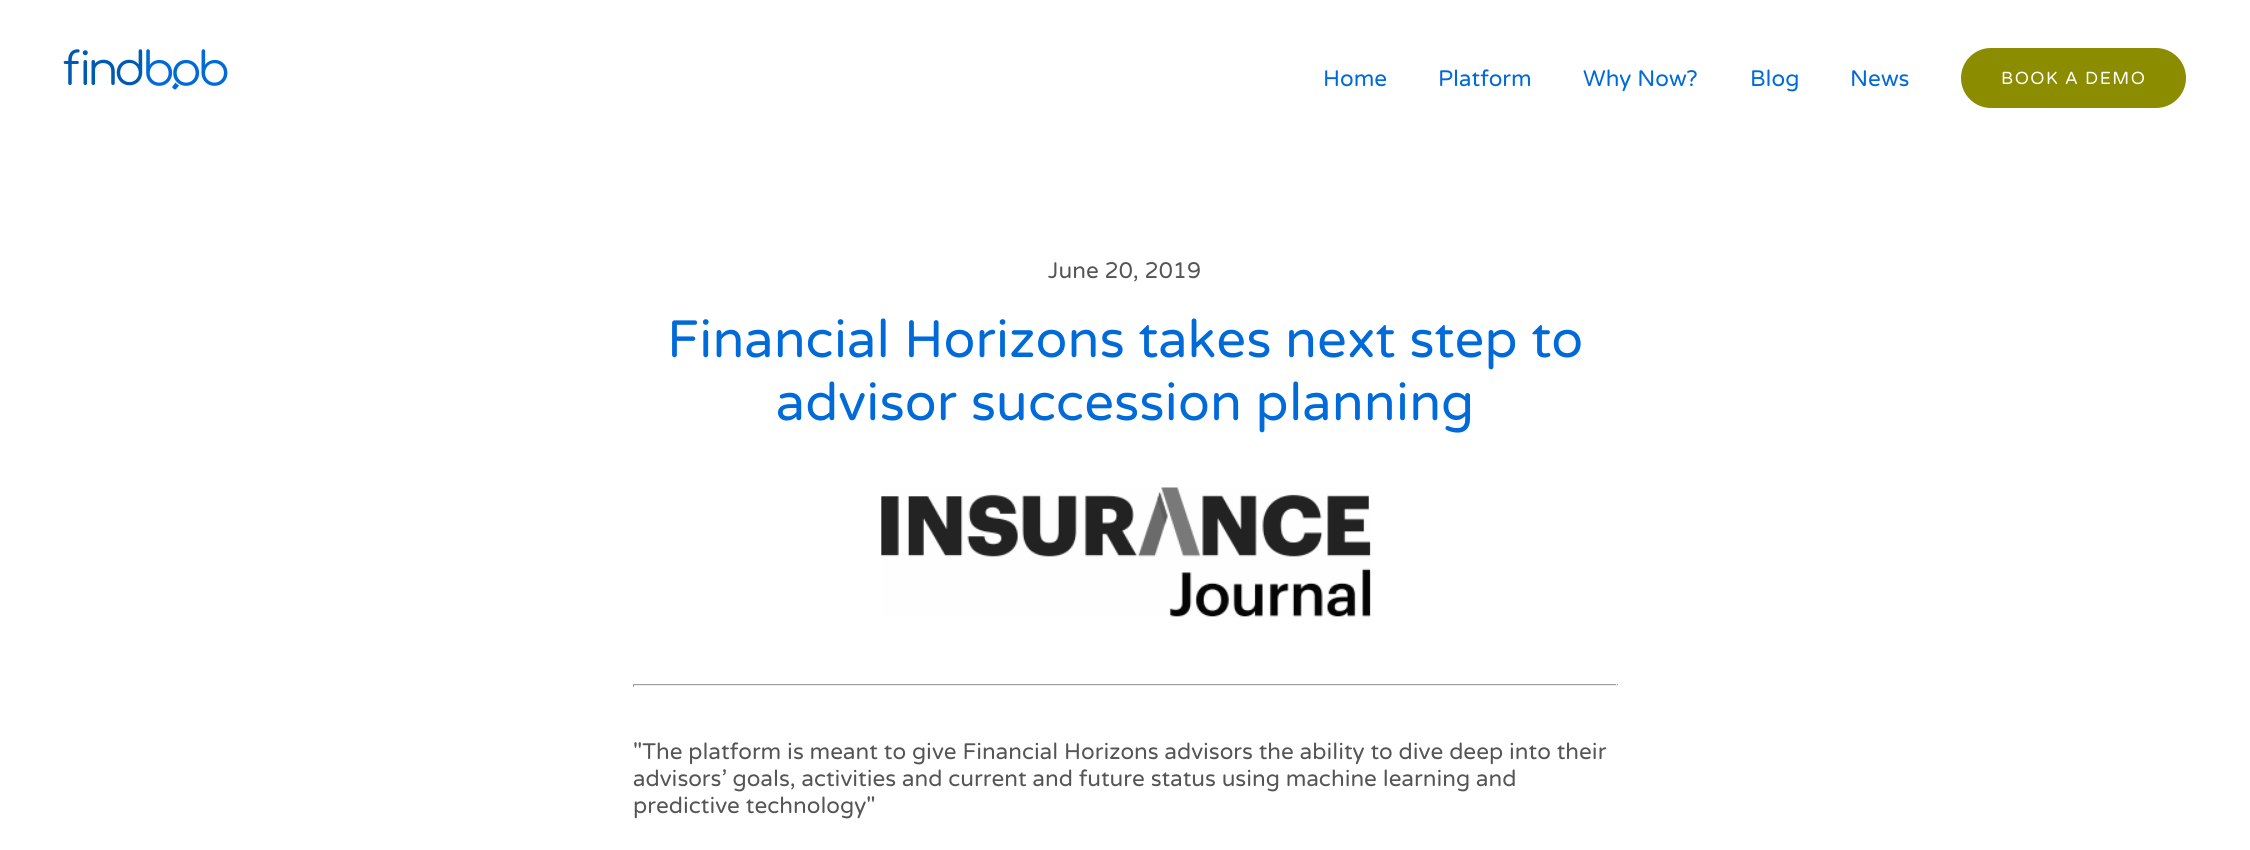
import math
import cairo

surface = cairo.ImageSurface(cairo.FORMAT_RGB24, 2250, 850)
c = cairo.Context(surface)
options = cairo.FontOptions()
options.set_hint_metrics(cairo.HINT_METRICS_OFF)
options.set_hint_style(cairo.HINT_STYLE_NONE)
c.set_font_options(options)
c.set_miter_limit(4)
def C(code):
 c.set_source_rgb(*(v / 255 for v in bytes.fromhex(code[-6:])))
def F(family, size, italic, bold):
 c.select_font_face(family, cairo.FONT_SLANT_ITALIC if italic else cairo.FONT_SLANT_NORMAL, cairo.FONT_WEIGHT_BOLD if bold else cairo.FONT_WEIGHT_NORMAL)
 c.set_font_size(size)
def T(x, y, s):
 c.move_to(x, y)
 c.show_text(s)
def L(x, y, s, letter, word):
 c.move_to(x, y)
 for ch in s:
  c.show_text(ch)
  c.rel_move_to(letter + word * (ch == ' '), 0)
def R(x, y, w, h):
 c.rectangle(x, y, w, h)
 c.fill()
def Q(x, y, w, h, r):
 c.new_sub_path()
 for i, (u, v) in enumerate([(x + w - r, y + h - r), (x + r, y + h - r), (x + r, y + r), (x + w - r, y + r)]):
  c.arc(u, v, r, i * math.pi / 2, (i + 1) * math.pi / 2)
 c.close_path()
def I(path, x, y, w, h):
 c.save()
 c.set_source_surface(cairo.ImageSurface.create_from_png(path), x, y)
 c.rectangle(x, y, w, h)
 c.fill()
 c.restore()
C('ffffff')
c.paint()
I('1.png',63,49,165,41)
F('Varela Round',22.5,0,0)
C('006ad8')
T(1323,86,'Home')
T(1438,86,'Platform')
T(1583,86,'Why Now?')
T(1750,86,'Blog')
T(1850,86,'News')
C('8b8c00')
Q(1961,48,225,60,30)
c.fill()
F('Varela Round',17.5,0,0)
C('ffffff')
L(2001,84,'BOOK A DEMO',1.5,0)
F('Varela Round',22.5,0,0)
C('555555')
T(1048,278,'June 20, 2019')
F('Varela Round',52.5,0,0)
C('006ad8')
T(667,357,'Financial Horizons takes next step to')
T(776,420,'advisor succession planning')
I('2.png',881,487,490,130)
C('9f9f9f')
R(633,684,985,1)
C('eeeeee')
R(1616,684,1,3)
R(633,685,985,1)
C('9f9f9f')
R(633,684,1,3)
F('Varela Round',22.5,0,0)
C('555555')
T(633,759,'"The platform is meant to give Financial Horizons advisors the ability to dive deep into their')
T(633,786,'advisors’ goals, activities and current and future status using machine learning and')
T(633,813,'predictive technology"')
surface.write_to_png('o.png')
